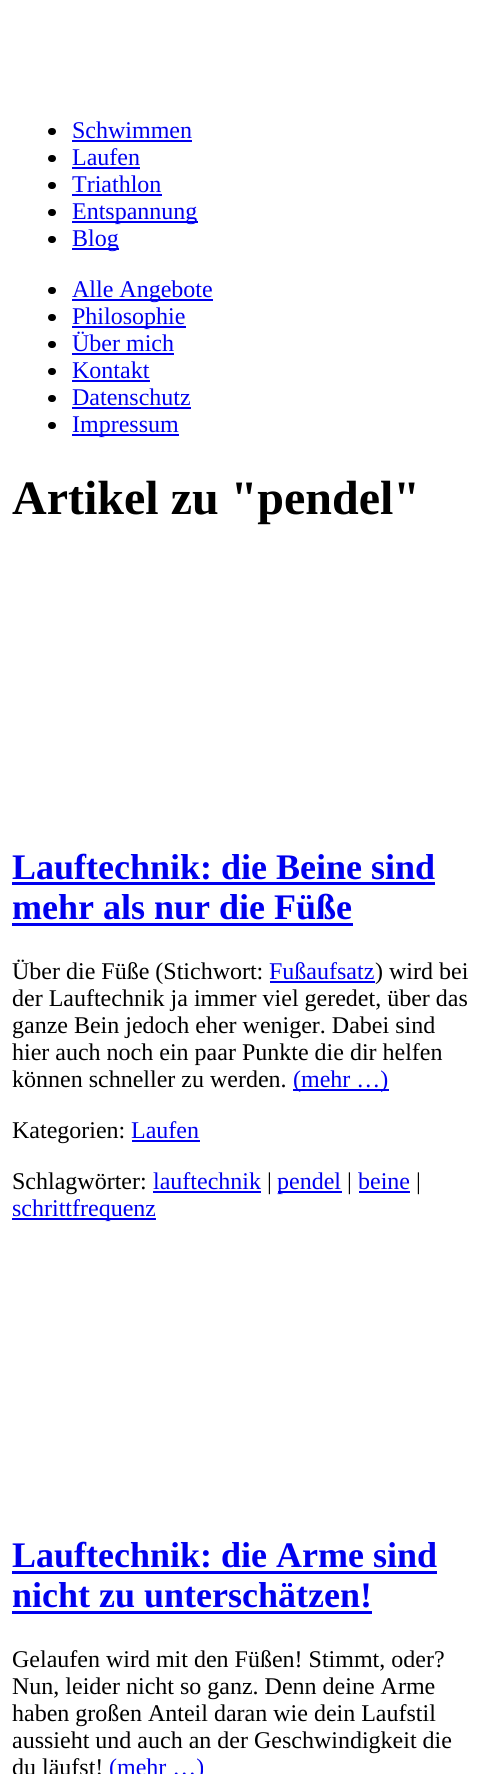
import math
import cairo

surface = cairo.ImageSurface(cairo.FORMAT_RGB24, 489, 1774)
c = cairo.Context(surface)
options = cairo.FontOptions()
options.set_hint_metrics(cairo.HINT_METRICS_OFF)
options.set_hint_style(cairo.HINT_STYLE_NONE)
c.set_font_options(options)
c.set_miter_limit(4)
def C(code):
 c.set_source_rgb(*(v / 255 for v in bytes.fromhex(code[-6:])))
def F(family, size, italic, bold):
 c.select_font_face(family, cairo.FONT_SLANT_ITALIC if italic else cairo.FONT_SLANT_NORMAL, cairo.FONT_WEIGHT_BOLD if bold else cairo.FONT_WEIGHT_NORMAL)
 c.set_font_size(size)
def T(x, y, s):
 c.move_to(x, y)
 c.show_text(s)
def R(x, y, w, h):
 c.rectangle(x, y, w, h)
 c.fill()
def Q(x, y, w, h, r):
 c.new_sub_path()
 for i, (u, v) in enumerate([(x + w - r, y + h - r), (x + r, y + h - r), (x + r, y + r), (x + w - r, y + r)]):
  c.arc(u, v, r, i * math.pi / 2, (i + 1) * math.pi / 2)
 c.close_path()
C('ffffff')
c.paint()
C('000000')
Q(48,128,8,7,3.5)
c.fill()
F('Liberation Serif',24,0,0)
C('0000ee')
T(72,138,'Schwimmen')
R(72,140,120,2)
C('000000')
Q(48,155,8,7,3.5)
c.fill()
C('0000ee')
T(72,165,'Laufen')
R(72,167,68,2)
C('000000')
Q(48,182,8,7,3.5)
c.fill()
C('0000ee')
T(72,192,'Triathlon')
R(72,194,90,2)
C('000000')
Q(48,209,8,7,3.5)
c.fill()
C('0000ee')
R(72,221,126,2)
T(72,219,'Entspannung')
C('000000')
Q(48,236,8,7,3.5)
c.fill()
C('0000ee')
R(72,248,47,2)
T(72,246,'Blog')
C('000000')
Q(48,287,8,7,3.5)
c.fill()
C('0000ee')
R(72,299,141,2)
T(72,297,'Alle Angebote')
C('000000')
Q(48,314,8,7,3.5)
c.fill()
C('0000ee')
R(72,326,114,2)
T(72,324,'Philosophie')
C('000000')
Q(48,341,8,7,3.5)
c.fill()
C('0000ee')
T(72,351,'Über mich')
R(72,353,102,2)
C('000000')
Q(48,368,8,7,3.5)
c.fill()
C('0000ee')
T(72,378,'Kontakt')
R(72,380,78,2)
C('000000')
Q(48,395,8,7,3.5)
c.fill()
C('0000ee')
T(72,405,'Datenschutz')
R(72,407,119,2)
C('000000')
Q(48,422,8,7,3.5)
c.fill()
C('0000ee')
R(72,434,107,2)
T(72,432,'Impressum')
F('Liberation Serif',48,0,1)
C('000000')
T(12,514,'Artikel zu "pendel"')
F('Liberation Serif',36,0,1)
C('0000ee')
T(12,879,'Lauftechnik: die Beine sind')
R(12,882,423,3)
T(12,919,'mehr als nur die Füße')
R(12,923,341,3)
F('Liberation Serif',24,0,0)
C('000000')
T(12,979,'Über die Füße (Stichwort:')
C('0000ee')
T(269,979,'Fußaufsatz')
R(270,981,105,2)
C('000000')
T(375,979,') wird bei')
T(12,1006,'der Lauftechnik ja immer viel geredet, über das')
T(12,1033,'ganze Bein jedoch eher weniger. Dabei sind')
T(12,1060,'hier auch noch ein paar Punkte die dir helfen')
T(12,1087,'können schneller zu werden.')
C('0000ee')
R(293,1089,96,2)
T(293,1087,'(mehr …)')
C('000000')
T(12,1138,'Kategorien:')
C('0000ee')
T(131,1138,'Laufen')
R(132,1140,68,2)
C('000000')
T(12,1189,'Schlagwörter:')
C('0000ee')
T(153,1189,'lauftechnik')
R(153,1191,108,2)
C('000000')
T(267,1189,'|')
C('0000ee')
R(278,1191,64,2)
T(277,1189,'pendel')
C('000000')
T(347,1189,'|')
C('0000ee')
T(358,1189,'beine')
R(359,1191,51,2)
C('000000')
T(416,1189,'|')
C('0000ee')
R(12,1218,144,2)
T(12,1216,'schrittfrequenz')
F('Liberation Serif',36,0,1)
T(12,1567,'Lauftechnik: die Arme sind')
R(12,1571,425,3)
T(12,1607,'nicht zu unterschätzen!')
R(12,1611,360,3)
F('Liberation Serif',24,0,0)
C('000000')
T(12,1667,'Gelaufen wird mit den Füßen! Stimmt, oder?')
T(12,1694,'Nun, leider nicht so ganz. Denn deine Arme')
T(12,1721,'haben großen Anteil daran wie dein Laufstil')
T(12,1748,'aussieht und auch an der Geschwindigkeit die')
T(12,1775,'du läufst!')
C('0000ee')
T(109,1775,'(mehr …)')
surface.write_to_png('o.png')
